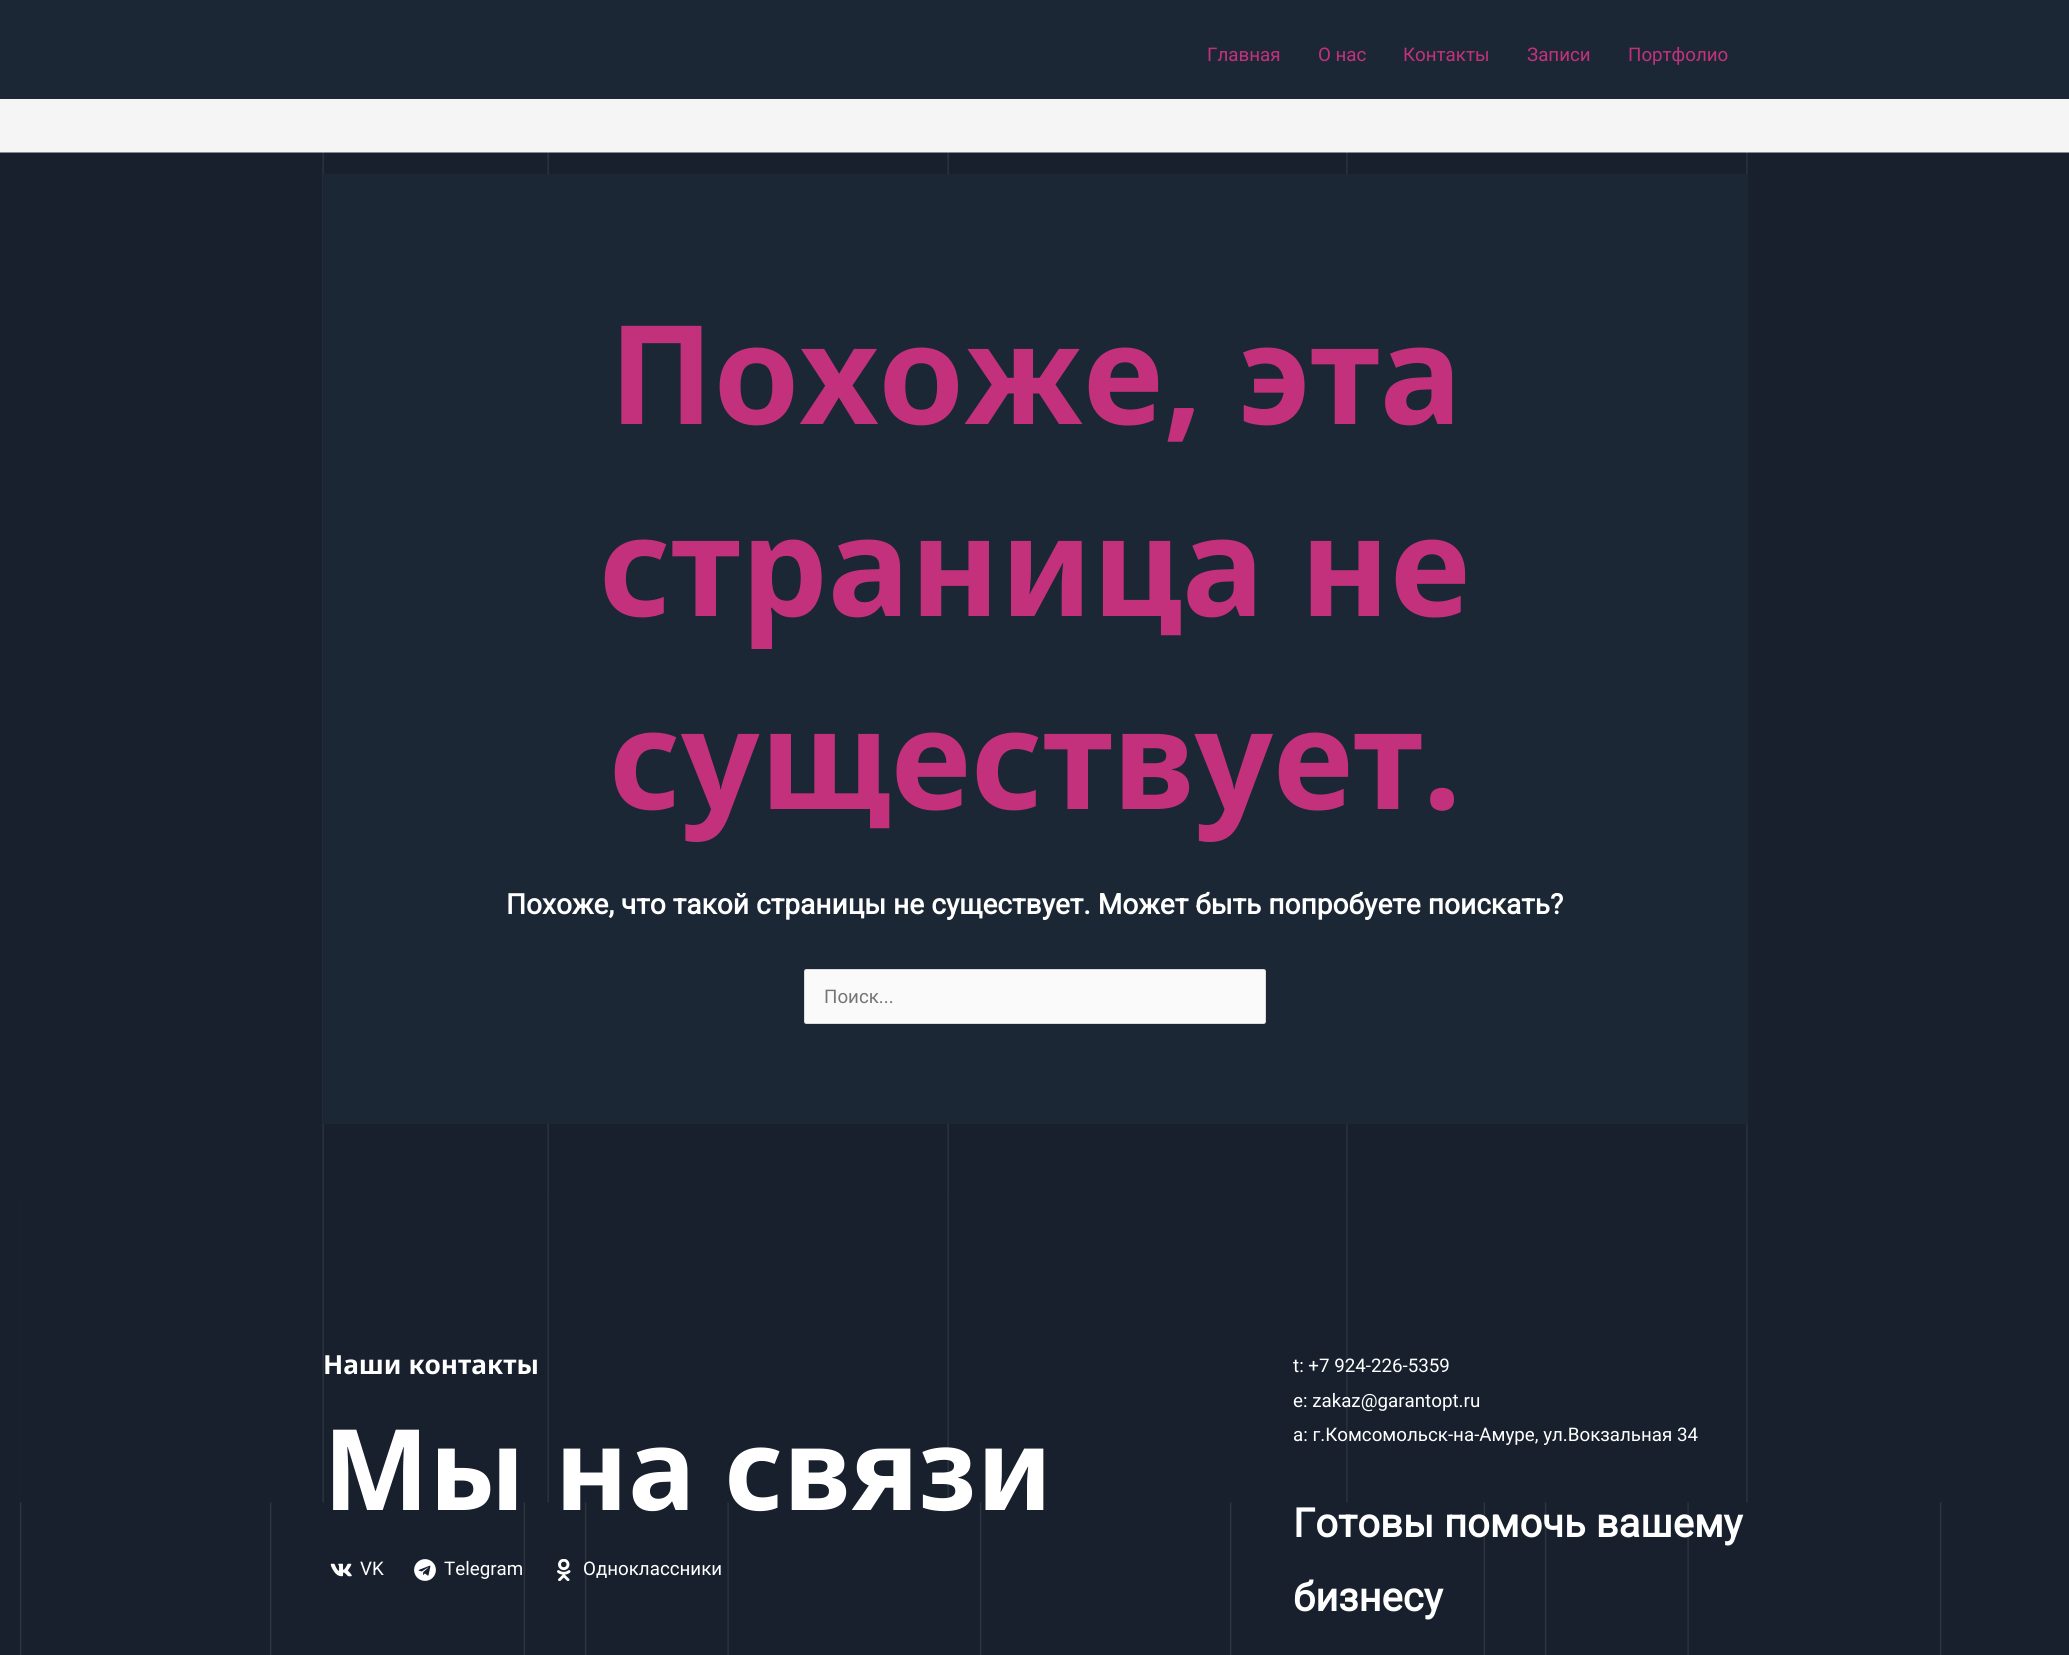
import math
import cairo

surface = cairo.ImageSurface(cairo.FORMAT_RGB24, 2069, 1655)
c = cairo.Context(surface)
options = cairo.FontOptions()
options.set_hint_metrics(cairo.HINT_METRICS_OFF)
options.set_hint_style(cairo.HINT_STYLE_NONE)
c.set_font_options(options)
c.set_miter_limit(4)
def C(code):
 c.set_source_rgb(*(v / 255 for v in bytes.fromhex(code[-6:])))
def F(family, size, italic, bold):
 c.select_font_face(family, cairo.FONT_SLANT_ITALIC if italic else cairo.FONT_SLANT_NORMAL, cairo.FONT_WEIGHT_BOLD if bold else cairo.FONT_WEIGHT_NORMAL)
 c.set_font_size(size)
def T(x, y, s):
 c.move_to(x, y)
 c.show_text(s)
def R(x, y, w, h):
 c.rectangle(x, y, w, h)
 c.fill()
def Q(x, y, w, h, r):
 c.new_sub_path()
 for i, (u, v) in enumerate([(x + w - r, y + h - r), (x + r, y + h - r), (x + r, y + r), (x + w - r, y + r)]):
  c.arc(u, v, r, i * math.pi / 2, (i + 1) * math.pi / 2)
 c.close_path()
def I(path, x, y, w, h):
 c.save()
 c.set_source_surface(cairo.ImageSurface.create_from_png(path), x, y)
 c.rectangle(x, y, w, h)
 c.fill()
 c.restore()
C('f5f5f5')
c.paint()
I('1.png',0,152,2069,1047)
C('1c2735')
R(0,0,2069,99)
F('Roboto',18.75,0,0)
C('c3317d')
T(1207,61,'Главная')
T(1318,61,'О нас')
T(1403,61,'Контакты')
T(1527,61,'Записи')
T(1628,61,'Портфолио')
C('1c2735')
R(323,174,1425,950)
F('Noto Sans',137.5,0,1)
C('c3317d')
T(609,424,'Похоже, эта')
T(599,616,'страница не')
T(609,809,'существует.')
F('Roboto',28.1,0,1)
C('ffffff')
T(506,914,'Похоже, что такой страницы не существует. Может быть попробуете поискать?')
C('fafafa')
Q(804.5,969.5,461,54,2)
c.fill_preserve()
C('dddddd')
c.set_line_width(1)
c.stroke()
F('Roboto',18.75,0,0)
C('757575')
T(824,1003,'Поиск...')
I('2.png',0,1198,2069,457)
I('3.png',20,1199,1922,304)
F('Noto Sans',26.25,0,1)
C('ffffff')
T(323,1374,'Наши контакты')
F('Noto Sans',112.5,0,1)
T(323,1510,'Мы на связи')
I('4.png',330,1563,22,14)
F('Roboto',18.75,0,0)
T(360,1575,'VK')
I('5.png',414,1559,22,22)
T(444,1575,'Telegram')
I('6.png',557,1559,14,22)
T(583,1575,'Одноклассники')
T(1293,1372,'t: +7 924-226-5359')
T(1293,1407,'e: zakaz@garantopt.ru')
T(1293,1441,'a: г.Комсомольск-на-Амуре, ул.Вокзальная 34')
F('Roboto',40,0,1)
T(1293,1537,'Готовы помочь вашему')
T(1293,1611,'бизнесу')
surface.write_to_png('o.png')
